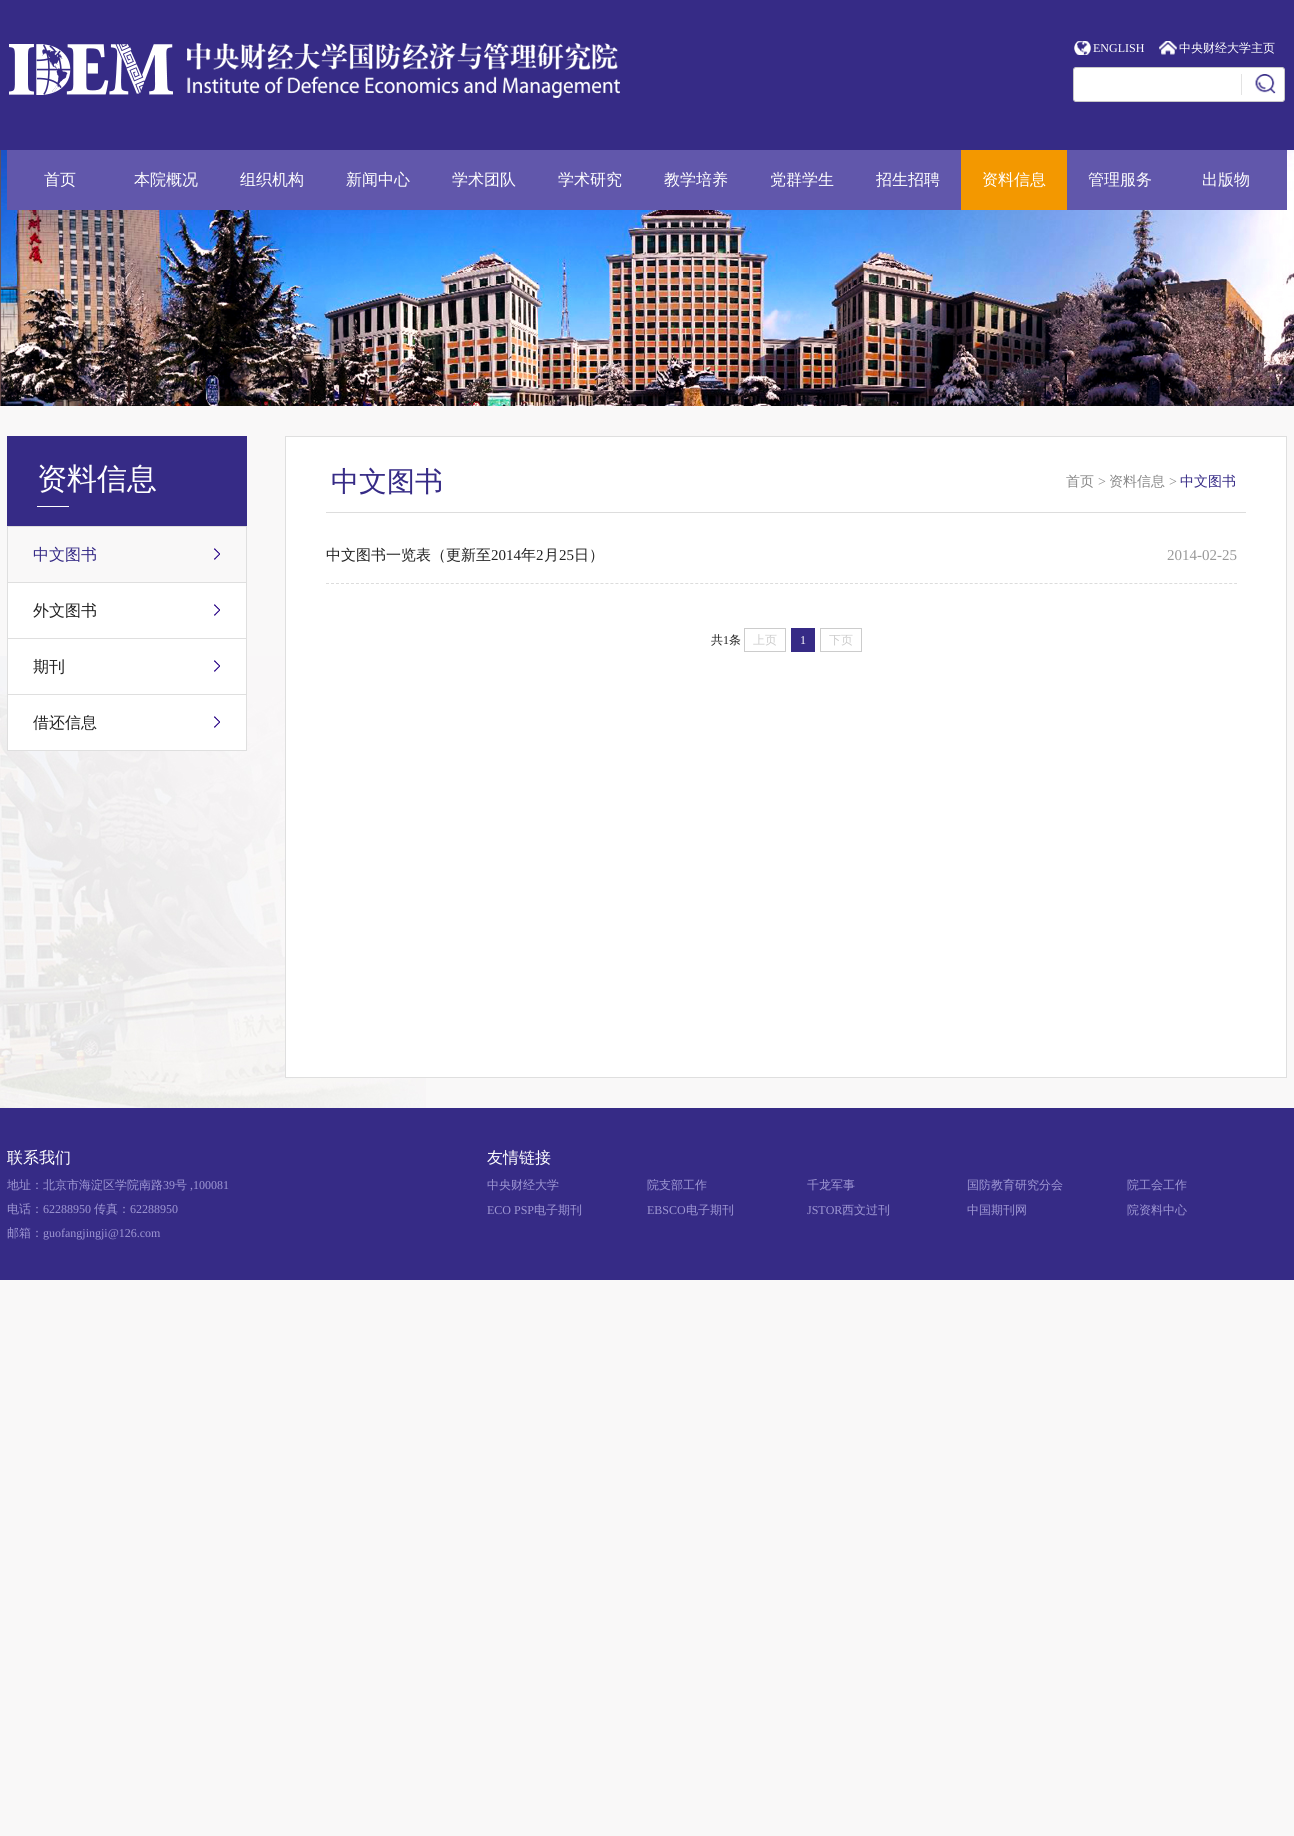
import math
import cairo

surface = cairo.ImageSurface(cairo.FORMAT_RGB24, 1294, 1836)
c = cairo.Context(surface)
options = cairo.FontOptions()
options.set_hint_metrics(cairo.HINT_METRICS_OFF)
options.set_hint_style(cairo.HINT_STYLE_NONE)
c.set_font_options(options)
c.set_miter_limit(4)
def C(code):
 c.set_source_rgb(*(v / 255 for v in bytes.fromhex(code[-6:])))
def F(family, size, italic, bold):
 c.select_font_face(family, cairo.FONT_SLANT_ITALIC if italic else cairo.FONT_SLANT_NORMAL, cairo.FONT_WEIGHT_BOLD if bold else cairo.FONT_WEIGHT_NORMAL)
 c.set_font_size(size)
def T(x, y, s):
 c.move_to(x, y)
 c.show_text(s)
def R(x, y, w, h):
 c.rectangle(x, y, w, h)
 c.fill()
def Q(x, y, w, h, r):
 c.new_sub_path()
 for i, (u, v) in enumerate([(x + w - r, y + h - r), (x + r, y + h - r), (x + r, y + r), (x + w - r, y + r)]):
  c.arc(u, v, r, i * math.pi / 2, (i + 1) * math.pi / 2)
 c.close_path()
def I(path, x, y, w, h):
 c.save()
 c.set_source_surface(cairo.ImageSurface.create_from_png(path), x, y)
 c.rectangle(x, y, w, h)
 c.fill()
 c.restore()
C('f9f8f8')
c.paint()
I('1.png',0,656,426,452)
C('362b86')
R(0,0,1294,150)
I('2.png',9,43,611,55)
I('3.png',1074,41,17,14)
F('Liberation Serif',12,0,0)
C('ffffff')
T(1093,52,'ENGLISH')
I('4.png',1159,41,18,14)
F('WenQuanYi Zen Hei Medium',12,0,0)
T(1179,52,'中央财经大学主页')
Q(1073.5,67.5,211,34,2.5)
c.fill_preserve()
C('c8c8c8')
c.set_line_width(1)
c.stroke()
I('5.png',1241,74,35,21)
I('6.png',0,150,1294,256)
C('6157ab')
R(7,150,1280,60)
F('WenQuanYi Zen Hei Medium',16,0,0)
C('ffffff')
T(44,185,'首页')
T(134,185,'本院概况')
T(240,185,'组织机构')
T(346,185,'新闻中心')
T(452,185,'学术团队')
T(558,185,'学术研究')
T(664,185,'教学培养')
T(770,185,'党群学生')
T(876,185,'招生招聘')
C('f39800')
R(961,150,106,60)
C('ffffff')
T(982,185,'资料信息')
T(1088,185,'管理服务')
T(1202,185,'出版物')
C('362b86')
R(7,436,240,90)
C('ffffff')
R(37,506,32,1)
C('dddddd')
R(7,526,240,1)
F('WenQuanYi Zen Hei Medium',30,0,0)
C('ffffff')
T(37,489,'资料信息')
C('dfdfdf')
R(246,527,1,224)
R(7,527,1,224)
R(8,582,238,1)
F('WenQuanYi Zen Hei Medium',16,0,0)
C('362b86')
T(33,560,'中文图书')
I('7.png',214,548,6,12)
C('ffffff')
R(8,583,238,55)
C('dfdfdf')
R(8,638,238,1)
C('222222')
T(33,616,'外文图书')
I('8.png',214,604,6,12)
C('ffffff')
R(8,639,238,55)
C('dfdfdf')
R(8,694,238,1)
C('222222')
T(33,672,'期刊')
I('8.png',214,660,6,12)
C('ffffff')
R(8,695,238,55)
C('dfdfdf')
R(8,750,238,1)
C('222222')
T(33,728,'借还信息')
I('8.png',214,716,6,12)
C('ffffff')
c.rectangle(285.5,436.5,1001,641)
c.fill_preserve()
C('dfdfdf')
c.stroke()
C('dddddd')
R(326,512,920,1)
F('WenQuanYi Zen Hei Medium',28,0,0)
C('362b86')
T(331,491,'中文图书')
F('WenQuanYi Zen Hei Medium',14,0,0)
C('888888')
T(1066,486,'首页')
F('Liberation Serif',14,0,0)
T(1098,486,'>')
F('WenQuanYi Zen Hei Medium',14,0,0)
T(1109,486,'资料信息')
F('Liberation Serif',14,0,0)
T(1169,486,'>')
F('WenQuanYi Zen Hei Medium',14,0,0)
C('362b86')
T(1180,486,'中文图书')
c.new_path()
c.move_to(326,583.5)
c.line_to(1237,583.5)
C('dcdcdc')
c.set_dash([3,1.99])
c.stroke()
F('WenQuanYi Zen Hei Medium',15,0,0)
C('222222')
T(326,560,'中文图书一览表（更新至')
F('Liberation Serif',15,0,0)
T(491,560,'2014')
F('WenQuanYi Zen Hei Medium',15,0,0)
T(521,560,'年')
F('Liberation Serif',15,0,0)
T(536,560,'2')
F('WenQuanYi Zen Hei Medium',15,0,0)
T(544,560,'月')
F('Liberation Serif',15,0,0)
T(559,560,'25')
F('WenQuanYi Zen Hei Medium',15,0,0)
T(574,560,'日）')
F('Liberation Serif',15,0,0)
C('999999')
T(1167,560,'2014-02-25')
F('WenQuanYi Zen Hei Medium',12,0,0)
C('222222')
T(711,644,'共')
F('Liberation Serif',12,0,0)
T(723,644,'1')
F('WenQuanYi Zen Hei Medium',12,0,0)
T(729,644,'条')
c.rectangle(744.5,628.5,41,23)
C('cccccc')
c.set_dash([])
c.stroke()
T(753,644,'上页')
C('362b86')
R(791,628,24,24)
F('Liberation Serif',12,0,0)
C('ffffff')
T(800,644,'1')
c.rectangle(820.5,628.5,41,23)
C('cccccc')
c.stroke()
F('WenQuanYi Zen Hei Medium',12,0,0)
T(829,644,'下页')
C('362b86')
R(0,1108,1294,172)
F('WenQuanYi Zen Hei Medium',16,0,0)
C('ffffff')
T(7,1163,'联系我们')
F('WenQuanYi Zen Hei Medium',12,0,0)
C('9f98d4')
T(7,1189,'地址：北京市海淀区学院南路')
F('Liberation Serif',12,0,0)
T(163,1189,'39')
F('WenQuanYi Zen Hei Medium',12,0,0)
T(175,1189,'号')
F('Liberation Serif',12,0,0)
T(190,1189,',100081')
F('WenQuanYi Zen Hei Medium',12,0,0)
T(7,1213,'电话：')
F('Liberation Serif',12,0,0)
T(43,1213,'62288950')
F('WenQuanYi Zen Hei Medium',12,0,0)
T(94,1213,'传真：')
F('Liberation Serif',12,0,0)
T(130,1213,'62288950')
F('WenQuanYi Zen Hei Medium',12,0,0)
T(7,1237,'邮箱：')
F('Liberation Serif',12,0,0)
T(43,1237,'guofangjingji@126.com')
F('WenQuanYi Zen Hei Medium',16,0,0)
C('ffffff')
T(487,1163,'友情链接')
F('WenQuanYi Zen Hei Medium',12,0,0)
C('9f98d4')
T(487,1189,'中央财经大学')
T(647,1189,'院支部工作')
T(807,1189,'千龙军事')
T(967,1189,'国防教育研究分会')
T(1127,1189,'院工会工作')
F('Liberation Serif',12,0,0)
T(487,1214,'ECO PSP')
F('WenQuanYi Zen Hei Medium',12,0,0)
T(534,1214,'电子期刊')
F('Liberation Serif',12,0,0)
T(647,1214,'EBSCO')
F('WenQuanYi Zen Hei Medium',12,0,0)
T(686,1214,'电子期刊')
F('Liberation Serif',12,0,0)
T(807,1214,'JSTOR')
F('WenQuanYi Zen Hei Medium',12,0,0)
T(842,1214,'西文过刊')
T(967,1214,'中国期刊网')
T(1127,1214,'院资料中心')
surface.write_to_png('o.png')
